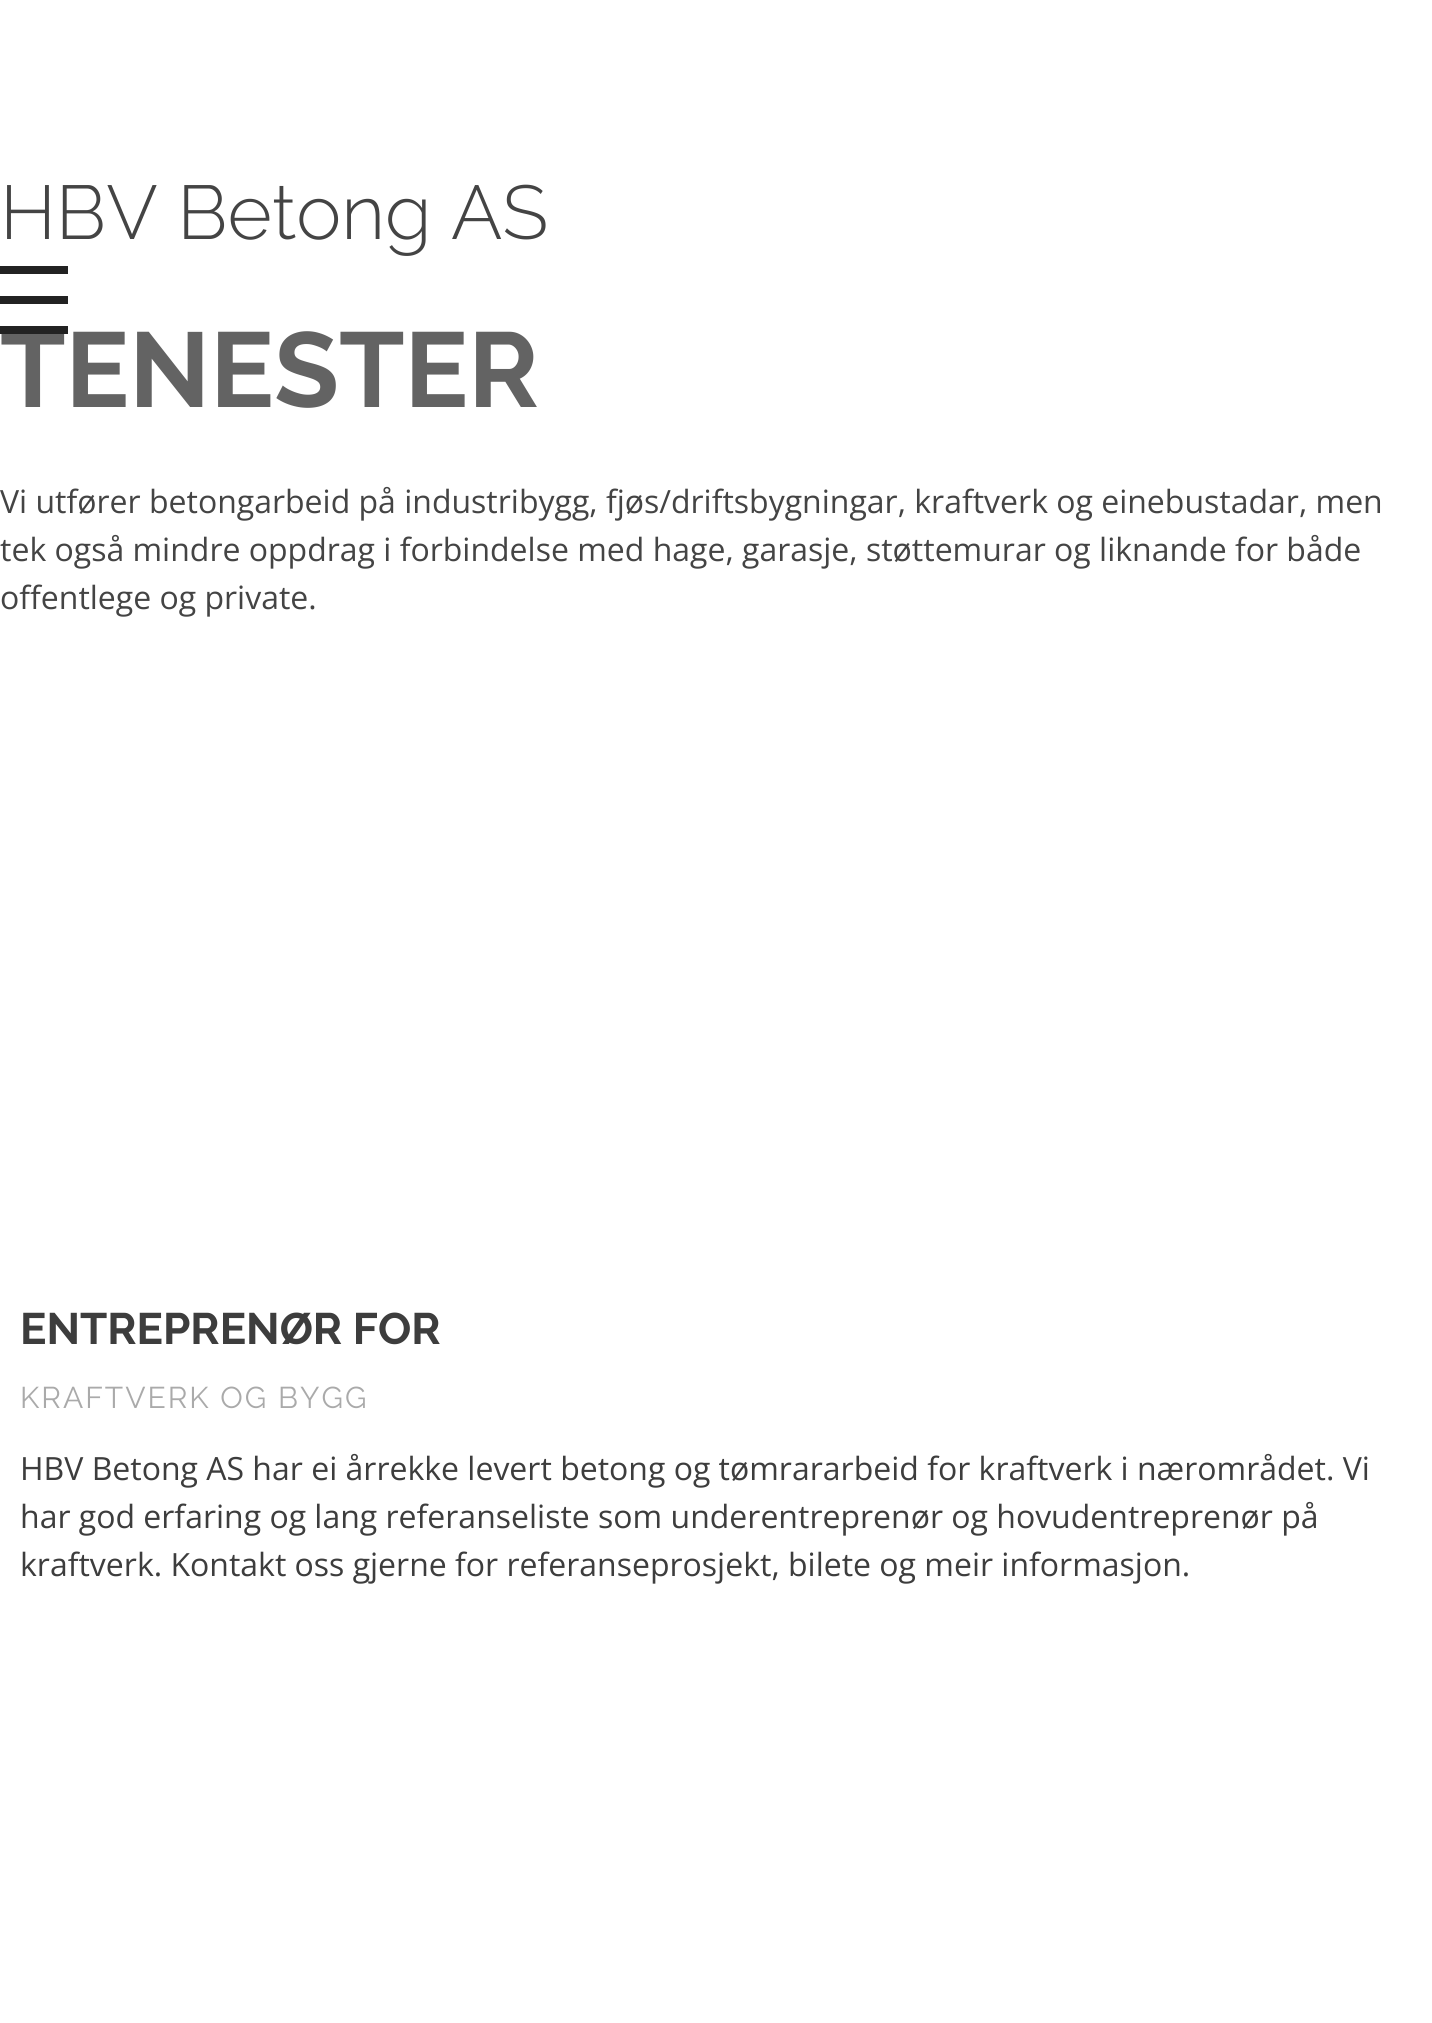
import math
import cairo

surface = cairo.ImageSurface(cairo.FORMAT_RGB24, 1432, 2023)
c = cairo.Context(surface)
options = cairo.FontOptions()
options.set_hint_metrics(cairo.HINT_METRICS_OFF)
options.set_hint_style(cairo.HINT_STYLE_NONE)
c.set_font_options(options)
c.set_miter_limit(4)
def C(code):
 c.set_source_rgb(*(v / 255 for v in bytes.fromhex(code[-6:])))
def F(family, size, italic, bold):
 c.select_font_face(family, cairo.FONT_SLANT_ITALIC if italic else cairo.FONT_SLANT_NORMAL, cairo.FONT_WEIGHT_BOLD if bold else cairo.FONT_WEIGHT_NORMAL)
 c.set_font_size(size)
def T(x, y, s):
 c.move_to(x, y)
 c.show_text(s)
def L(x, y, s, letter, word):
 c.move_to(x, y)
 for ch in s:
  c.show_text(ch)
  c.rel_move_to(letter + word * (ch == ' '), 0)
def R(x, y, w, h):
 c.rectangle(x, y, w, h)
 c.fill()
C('ffffff')
c.paint()
F('Raleway Light',76,0,0)
C('444444')
T(0,239,'HBV Betong AS')
F('Raleway',106,0,1)
C('636363')
T(0,407,'TENESTER')
F('Open Sans',32,0,0)
C('444444')
T(0,513,'Vi utfører betongarbeid på industribygg, fjøs/driftsbygningar, kraftverk og einebustadar, men')
T(0,561,'tek også mindre oppdrag i forbindelse med hage, garasje, støttemurar og liknande for både')
T(0,609,'offentlege og private.')
F('Raleway',44,0,1)
C('3d3d3d')
T(20,1344,'ENTREPRENØR FOR')
F('Raleway',30,0,0)
C('aaaaaa')
L(20,1408,'KRAFTVERK OG BYGG',2,0)
F('Open Sans',32,0,0)
C('3d3d3d')
T(20,1480,'HBV Betong AS har ei årrekke levert betong og tømrararbeid for kraftverk i nærområdet. Vi')
T(20,1528,'har god erfaring og lang referanseliste som underentreprenør og hovudentreprenør på')
T(20,1576,'kraftverk. Kontakt oss gjerne for referanseprosjekt, bilete og meir informasjon.')
C('222222')
R(0,266,68,8)
R(0,296,68,8)
R(0,326,68,8)
surface.write_to_png('o.png')
